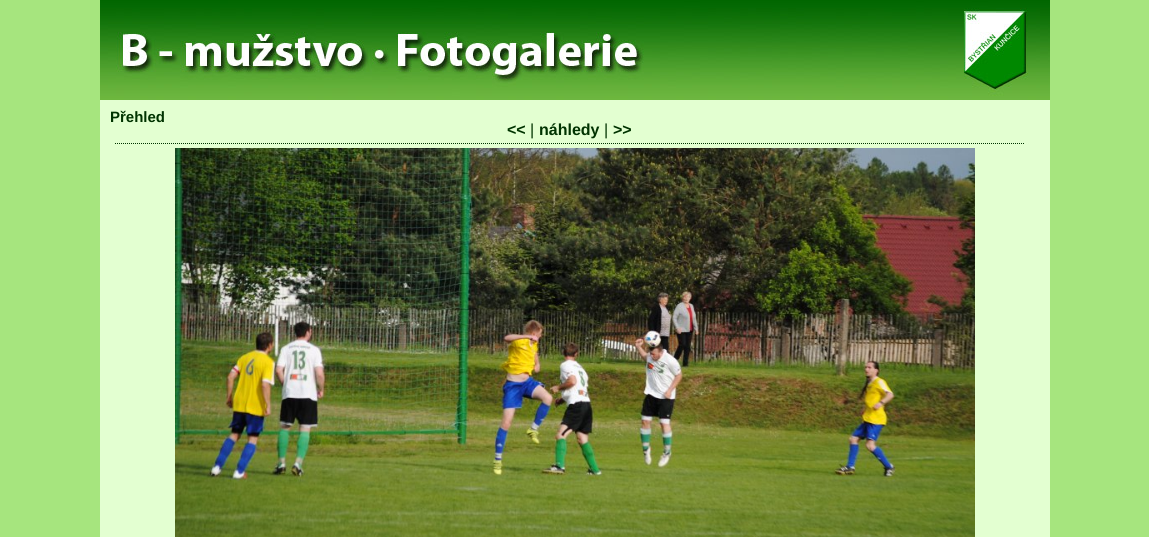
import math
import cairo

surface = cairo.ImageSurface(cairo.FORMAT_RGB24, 1149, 537)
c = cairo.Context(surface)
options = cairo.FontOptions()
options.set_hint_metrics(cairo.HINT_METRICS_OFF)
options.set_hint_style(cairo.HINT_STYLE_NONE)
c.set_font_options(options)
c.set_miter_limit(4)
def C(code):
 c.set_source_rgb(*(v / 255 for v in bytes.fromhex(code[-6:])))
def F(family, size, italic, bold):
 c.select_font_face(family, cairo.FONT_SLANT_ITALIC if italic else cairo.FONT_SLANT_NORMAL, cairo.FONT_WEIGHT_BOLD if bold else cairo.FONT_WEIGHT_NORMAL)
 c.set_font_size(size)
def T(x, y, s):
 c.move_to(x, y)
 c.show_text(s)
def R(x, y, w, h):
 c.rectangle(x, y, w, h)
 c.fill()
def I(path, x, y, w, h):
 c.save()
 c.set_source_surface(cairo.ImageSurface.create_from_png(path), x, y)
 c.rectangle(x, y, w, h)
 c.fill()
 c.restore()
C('a6e57e')
c.paint()
C('e3ffd1')
R(100,100,950,437)
I('1.png',100,0,950,100)
F('Liberation Sans',15,0,1)
C('003300')
T(110,122,'Přehled')
c.new_path()
c.move_to(115,143.5)
c.line_to(1024,143.5)
c.set_line_width(1)
c.set_dash([1,1])
c.stroke()
F('Liberation Sans',16,0,1)
T(507,135,'<<')
F('Liberation Sans',16,0,0)
T(530,135,'|')
F('Liberation Sans',16,0,1)
T(539,135,'náhledy')
F('Liberation Sans',16,0,0)
T(604,135,'|')
F('Liberation Sans',16,0,1)
T(613,135,'>>')
I('2.png',175,148,800,389)
surface.write_to_png('o.png')
